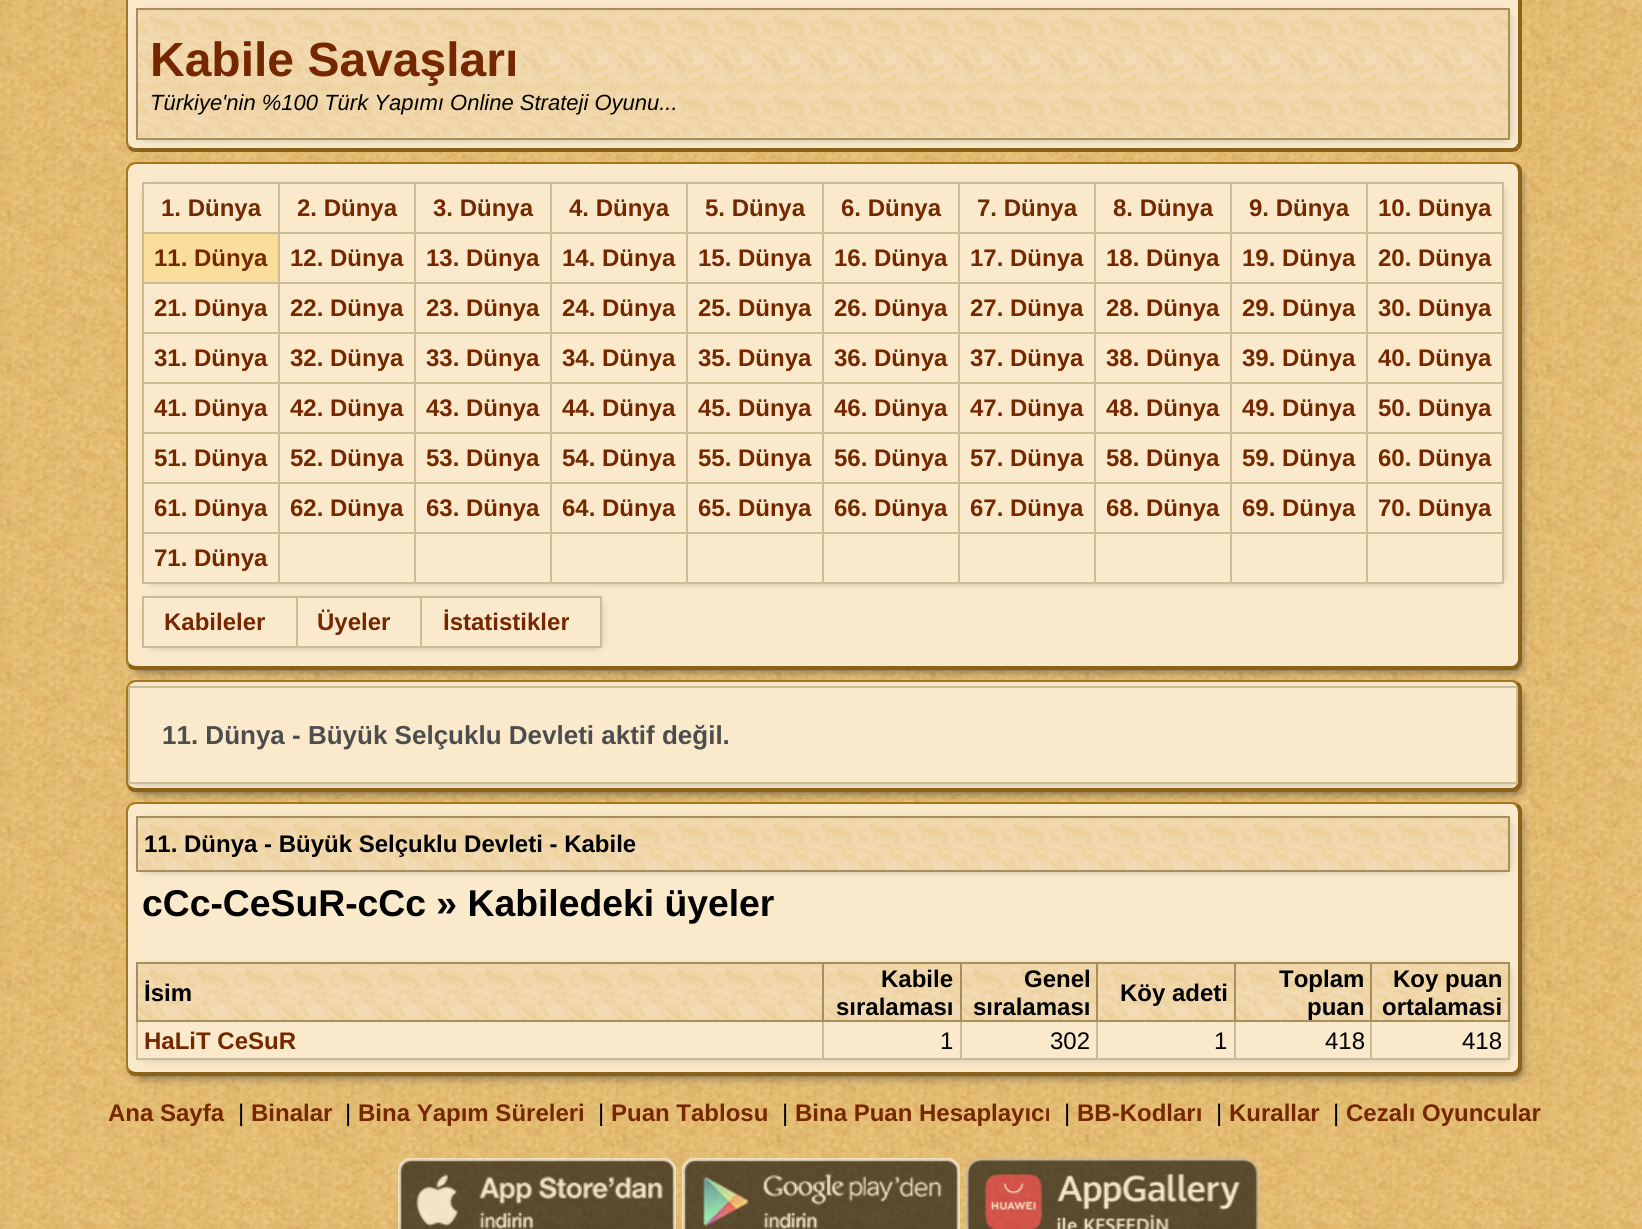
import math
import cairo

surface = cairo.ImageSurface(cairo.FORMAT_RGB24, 1642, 1229)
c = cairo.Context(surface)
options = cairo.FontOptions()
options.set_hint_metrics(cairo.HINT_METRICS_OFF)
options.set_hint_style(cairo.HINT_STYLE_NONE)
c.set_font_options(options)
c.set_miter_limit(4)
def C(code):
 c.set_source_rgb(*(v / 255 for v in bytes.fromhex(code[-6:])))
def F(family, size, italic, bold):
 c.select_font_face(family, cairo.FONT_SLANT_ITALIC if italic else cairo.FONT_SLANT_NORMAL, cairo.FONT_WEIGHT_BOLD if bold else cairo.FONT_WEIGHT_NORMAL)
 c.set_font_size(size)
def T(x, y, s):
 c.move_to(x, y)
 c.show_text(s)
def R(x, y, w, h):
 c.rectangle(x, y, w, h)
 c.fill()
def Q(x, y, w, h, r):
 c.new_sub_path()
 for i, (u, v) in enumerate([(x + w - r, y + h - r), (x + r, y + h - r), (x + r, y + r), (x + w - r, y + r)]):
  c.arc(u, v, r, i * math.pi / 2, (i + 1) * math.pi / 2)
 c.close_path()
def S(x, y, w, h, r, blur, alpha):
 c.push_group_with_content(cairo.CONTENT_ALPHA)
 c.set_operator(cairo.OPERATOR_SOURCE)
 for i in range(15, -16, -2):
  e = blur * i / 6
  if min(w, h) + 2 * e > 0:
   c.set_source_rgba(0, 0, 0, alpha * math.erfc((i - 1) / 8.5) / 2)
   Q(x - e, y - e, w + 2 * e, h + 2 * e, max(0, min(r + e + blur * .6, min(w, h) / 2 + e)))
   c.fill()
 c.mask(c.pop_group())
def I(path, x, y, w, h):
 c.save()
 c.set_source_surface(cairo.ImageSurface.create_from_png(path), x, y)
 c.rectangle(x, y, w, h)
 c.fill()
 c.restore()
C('ffffff')
c.paint()
I('1.png',0,0,1642,1229)
C('faeacb')
c.new_path()
c.move_to(126,0)
c.line_to(1522,0)
c.line_to(1522,142)
c.curve_to(1522,147.5,1517.5,152,1512,152)
c.line_to(136,152)
c.curve_to(130.5,152,126,147.5,126,142)
c.close_path()
c.fill()
C('8a6319')
c.new_path()
c.move_to(1522,0)
c.line_to(1518,0)
c.line_to(1518,143)
c.line_to(1516,146)
c.line_to(1519,149)
c.curve_to(1521,148,1522,145,1522,142)
c.close_path()
c.fill()
c.new_path()
c.move_to(136,152)
c.line_to(1512,152)
c.curve_to(1515,152,1518,151,1519,149)
c.line_to(1516,146)
c.curve_to(1515,147,1514,148,1512,148)
c.line_to(136,148)
c.curve_to(133,148,131,147,129,145)
c.line_to(128,148)
c.curve_to(130,151,132,152,136,152)
c.close_path()
c.fill()
C('a5761f')
c.new_path()
c.move_to(126,0)
c.line_to(128,0)
c.line_to(128,142)
c.line_to(129,145)
c.line_to(128,148)
c.curve_to(127,147,126,144,126,142)
c.close_path()
c.fill()
C('000000')
S(146,18,1358,116,0,6,.6)
C('a68f5b')
R(136,8,1374,2)
R(1508,8,2,132)
R(136,138,1374,2)
R(136,8,2,132)
I('2.png',138,10,1370,128)
F('Liberation Sans',48,0,1)
C('752700')
T(150,76,'Kabile Savaşları')
F('Liberation Sans',22,1,0)
C('000000')
T(150,110,'Türkiye\'nin %100 Türk Yapımı Online Strateji Oyunu...')
C('222222')
S(138,176,1380,492,2,6,1)
C('faeacb')
c.new_path()
c.move_to(136,164)
c.line_to(1512,164)
c.curve_to(1515,164,1518,168,1518,172)
c.line_to(1518,660)
c.curve_to(1518,663,1515,666,1512,666)
c.line_to(136,666)
c.curve_to(132,666,128,663,128,660)
c.line_to(128,172)
c.curve_to(128,168,132,164,136,164)
c.close_path()
c.fill()
C('a5761f')
c.new_path()
c.move_to(136,162)
c.curve_to(133,162,130,163,129,165)
c.line_to(130,166)
c.curve_to(132,165,134,164,136,164)
c.line_to(1512,164)
c.curve_to(1513,164,1514,165,1515,165)
c.line_to(1518,164)
c.curve_to(1517,163,1514,162,1512,162)
c.close_path()
c.fill()
C('8a6319')
c.new_path()
c.move_to(1522,660)
c.line_to(1522,172)
c.curve_to(1522,168,1521,166,1518,164)
c.line_to(1515,165)
c.curve_to(1517,167,1518,169,1518,172)
c.line_to(1518,660)
c.curve_to(1518,662,1517,663,1516,664)
c.line_to(1519,667)
c.curve_to(1521,666,1522,663,1522,660)
c.close_path()
c.fill()
c.new_path()
c.move_to(136,670)
c.line_to(1512,670)
c.curve_to(1515,670,1518,669,1519,667)
c.line_to(1516,664)
c.curve_to(1515,665,1514,666,1512,666)
c.line_to(136,666)
c.curve_to(133,666,131,665,129,663)
c.line_to(128,666)
c.curve_to(130,669,132,670,136,670)
c.close_path()
c.fill()
C('a5761f')
c.new_path()
c.move_to(126,172)
c.line_to(126,660)
c.curve_to(126,662,127,665,128,666)
c.line_to(129,663)
c.curve_to(129,662,128,661,128,660)
c.line_to(128,172)
c.curve_to(128,170,129,168,130,166)
c.line_to(129,165)
c.curve_to(127,166,126,169,126,172)
c.close_path()
c.fill()
c.save()
c.set_fill_rule(cairo.FILL_RULE_EVEN_ODD)
c.new_path()
c.move_to(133,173)
c.line_to(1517,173)
c.line_to(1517,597)
c.line_to(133,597)
c.close_path()
c.move_to(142,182)
c.line_to(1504,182)
c.line_to(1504,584)
c.line_to(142,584)
c.close_path()
c.clip()
C('000000')
S(152,192,1346,386,0,6,.6)
c.restore()
C('cabd95')
R(1366,182,138,2)
R(1366,232,138,2)
R(1366,282,138,2)
R(1366,332,138,2)
R(1366,382,138,2)
R(1366,432,138,2)
R(1366,482,138,2)
R(1366,532,138,2)
R(1502,532,2,52)
R(1366,582,138,2)
R(1366,532,2,52)
R(1230,532,138,2)
R(1366,482,2,52)
R(1230,482,138,2)
R(1366,432,2,52)
R(1230,432,138,2)
R(1366,382,2,52)
R(1230,382,138,2)
R(1366,332,2,52)
R(1230,332,138,2)
R(1366,282,2,52)
R(1230,282,138,2)
R(1366,232,2,52)
R(1230,232,138,2)
R(1366,182,2,52)
R(1230,182,138,2)
R(1230,582,138,2)
R(1230,532,2,52)
R(1094,532,138,2)
R(1230,482,2,52)
R(1094,482,138,2)
R(1230,432,2,52)
R(1094,432,138,2)
R(1230,382,2,52)
R(1094,382,138,2)
R(1230,332,2,52)
R(1094,332,138,2)
R(1230,282,2,52)
R(1094,282,138,2)
R(1230,232,2,52)
R(1094,232,138,2)
R(1230,182,2,52)
R(1094,182,138,2)
R(1094,582,138,2)
R(1094,532,2,52)
R(958,532,138,2)
R(1094,482,2,52)
R(958,482,138,2)
R(1094,432,2,52)
R(958,432,138,2)
R(1094,382,2,52)
R(958,382,138,2)
R(1094,332,2,52)
R(958,332,138,2)
R(1094,282,2,52)
R(958,282,138,2)
R(1094,232,2,52)
R(958,232,138,2)
R(1094,182,2,52)
R(958,182,138,2)
R(958,582,138,2)
R(958,532,2,52)
R(822,532,138,2)
R(958,482,2,52)
R(822,482,138,2)
R(958,432,2,52)
R(822,432,138,2)
R(958,382,2,52)
R(822,382,138,2)
R(958,332,2,52)
R(822,332,138,2)
R(958,282,2,52)
R(822,282,138,2)
R(958,232,2,52)
R(822,232,138,2)
R(958,182,2,52)
R(822,182,138,2)
R(822,582,138,2)
R(822,532,2,52)
R(686,532,138,2)
R(822,482,2,52)
R(686,482,138,2)
R(822,432,2,52)
R(686,432,138,2)
R(822,382,2,52)
R(686,382,138,2)
R(822,332,2,52)
R(686,332,138,2)
R(822,282,2,52)
R(686,282,138,2)
R(822,232,2,52)
R(686,232,138,2)
R(822,182,2,52)
R(686,182,138,2)
R(686,582,138,2)
R(686,532,2,52)
R(550,532,138,2)
R(686,482,2,52)
R(550,482,138,2)
R(686,432,2,52)
R(550,432,138,2)
R(686,382,2,52)
R(550,382,138,2)
R(686,332,2,52)
R(550,332,138,2)
R(686,282,2,52)
R(550,282,138,2)
R(686,232,2,52)
R(550,232,138,2)
R(686,182,2,52)
R(550,182,138,2)
R(550,582,138,2)
R(550,532,2,52)
R(414,532,138,2)
R(550,482,2,52)
R(414,482,138,2)
R(550,432,2,52)
R(414,432,138,2)
R(550,382,2,52)
R(414,382,138,2)
R(550,332,2,52)
R(414,332,138,2)
R(550,282,2,52)
R(414,282,138,2)
R(550,232,2,52)
R(414,232,138,2)
R(550,182,2,52)
R(414,182,138,2)
R(414,582,138,2)
R(414,532,2,52)
R(278,532,138,2)
R(414,482,2,52)
R(278,482,138,2)
R(414,432,2,52)
R(278,432,138,2)
R(414,382,2,52)
R(278,382,138,2)
R(414,332,2,52)
R(278,332,138,2)
R(414,282,2,52)
R(278,282,138,2)
R(414,232,2,52)
R(278,232,138,2)
R(414,182,2,52)
R(278,182,138,2)
R(278,582,138,2)
R(278,532,2,52)
R(142,532,138,2)
R(278,482,2,52)
R(142,482,138,2)
R(278,432,2,52)
R(142,432,138,2)
R(278,382,2,52)
R(142,382,138,2)
R(278,332,2,52)
R(142,332,138,2)
R(278,282,2,52)
R(142,282,138,2)
R(278,232,2,52)
R(142,232,138,2)
R(278,182,2,52)
R(142,182,138,2)
R(142,582,138,2)
R(142,532,2,52)
R(142,482,2,52)
R(142,432,2,52)
R(142,382,2,52)
R(142,332,2,52)
R(142,282,2,52)
R(142,232,2,52)
R(142,182,2,52)
F('Liberation Sans',24,0,1)
C('752700')
T(161,216,'1. Dünya')
T(297,216,'2. Dünya')
T(433,216,'3. Dünya')
T(569,216,'4. Dünya')
T(705,216,'5. Dünya')
T(841,216,'6. Dünya')
T(977,216,'7. Dünya')
T(1113,216,'8. Dünya')
T(1249,216,'9. Dünya')
C('cabd95')
R(1502,482,2,52)
R(1502,432,2,52)
R(1502,382,2,52)
R(1502,332,2,52)
R(1502,282,2,52)
R(1502,232,2,52)
R(1502,182,2,52)
C('752700')
T(1378,216,'10. Dünya')
C('fadc9b')
R(144,234,134,48)
C('752700')
T(154,266,'11. Dünya')
T(290,266,'12. Dünya')
T(426,266,'13. Dünya')
T(562,266,'14. Dünya')
T(698,266,'15. Dünya')
T(834,266,'16. Dünya')
T(970,266,'17. Dünya')
T(1106,266,'18. Dünya')
T(1242,266,'19. Dünya')
T(1378,266,'20. Dünya')
T(154,316,'21. Dünya')
T(290,316,'22. Dünya')
T(426,316,'23. Dünya')
T(562,316,'24. Dünya')
T(698,316,'25. Dünya')
T(834,316,'26. Dünya')
T(970,316,'27. Dünya')
T(1106,316,'28. Dünya')
T(1242,316,'29. Dünya')
T(1378,316,'30. Dünya')
T(154,366,'31. Dünya')
T(290,366,'32. Dünya')
T(426,366,'33. Dünya')
T(562,366,'34. Dünya')
T(698,366,'35. Dünya')
T(834,366,'36. Dünya')
T(970,366,'37. Dünya')
T(1106,366,'38. Dünya')
T(1242,366,'39. Dünya')
T(1378,366,'40. Dünya')
T(154,416,'41. Dünya')
T(290,416,'42. Dünya')
T(426,416,'43. Dünya')
T(562,416,'44. Dünya')
T(698,416,'45. Dünya')
T(834,416,'46. Dünya')
T(970,416,'47. Dünya')
T(1106,416,'48. Dünya')
T(1242,416,'49. Dünya')
T(1378,416,'50. Dünya')
T(154,466,'51. Dünya')
T(290,466,'52. Dünya')
T(426,466,'53. Dünya')
T(562,466,'54. Dünya')
T(698,466,'55. Dünya')
T(834,466,'56. Dünya')
T(970,466,'57. Dünya')
T(1106,466,'58. Dünya')
T(1242,466,'59. Dünya')
T(1378,466,'60. Dünya')
T(154,516,'61. Dünya')
T(290,516,'62. Dünya')
T(426,516,'63. Dünya')
T(562,516,'64. Dünya')
T(698,516,'65. Dünya')
T(834,516,'66. Dünya')
T(970,516,'67. Dünya')
T(1106,516,'68. Dünya')
T(1242,516,'69. Dünya')
T(1378,516,'70. Dünya')
T(154,566,'71. Dünya')
c.save()
c.set_fill_rule(cairo.FILL_RULE_EVEN_ODD)
c.new_path()
c.move_to(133,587)
c.line_to(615,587)
c.line_to(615,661)
c.line_to(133,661)
c.close_path()
c.move_to(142,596)
c.line_to(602,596)
c.line_to(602,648)
c.line_to(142,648)
c.close_path()
c.clip()
C('000000')
S(152,606,444,36,0,6,.6)
c.restore()
C('cabd95')
R(420,596,182,2)
R(600,596,2,52)
R(420,646,182,2)
R(420,596,2,52)
R(296,596,126,2)
R(296,646,126,2)
R(296,596,2,52)
R(142,596,156,2)
R(142,646,156,2)
R(142,596,2,52)
C('752700')
T(164,630,'Kabileler')
T(317,630,'Üyeler')
T(443,630,'İstatistikler')
C('222222')
S(138,694,1380,96,2,6,1)
C('faeacb')
c.new_path()
c.move_to(136,682)
c.line_to(1512,682)
c.curve_to(1515,682,1518,686,1518,690)
c.line_to(1518,782)
c.curve_to(1518,785,1515,788,1512,788)
c.line_to(136,788)
c.curve_to(132,788,128,785,128,782)
c.line_to(128,690)
c.curve_to(128,686,132,682,136,682)
c.close_path()
c.fill()
C('a5761f')
c.new_path()
c.move_to(136,680)
c.curve_to(133,680,130,681,129,683)
c.line_to(130,684)
c.curve_to(132,683,134,682,136,682)
c.line_to(1512,682)
c.curve_to(1513,682,1514,683,1515,683)
c.line_to(1518,682)
c.curve_to(1517,681,1514,680,1512,680)
c.close_path()
c.fill()
C('8a6319')
c.new_path()
c.move_to(1522,782)
c.line_to(1522,690)
c.curve_to(1522,686,1521,684,1518,682)
c.line_to(1515,683)
c.curve_to(1517,685,1518,687,1518,689)
c.line_to(1518,783)
c.line_to(1516,786)
c.line_to(1519,789)
c.curve_to(1521,788,1522,785,1522,782)
c.close_path()
c.fill()
c.new_path()
c.move_to(136,792)
c.line_to(1512,792)
c.curve_to(1515,792,1518,791,1519,789)
c.line_to(1516,786)
c.curve_to(1515,787,1514,788,1512,788)
c.line_to(136,788)
c.curve_to(133,788,131,787,129,785)
c.line_to(128,788)
c.curve_to(130,791,132,792,136,792)
c.close_path()
c.fill()
C('a5761f')
c.new_path()
c.move_to(126,690)
c.line_to(126,782)
c.curve_to(126,784,127,787,128,788)
c.line_to(129,785)
c.line_to(128,782)
c.line_to(128,689)
c.curve_to(128,687,129,686,130,684)
c.line_to(129,683)
c.curve_to(127,684,126,687,126,690)
c.close_path()
c.fill()
c.save()
c.new_path()
c.move_to(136,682)
c.line_to(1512,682)
c.curve_to(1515.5,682,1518,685.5,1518,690)
c.line_to(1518,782)
c.curve_to(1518,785.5,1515.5,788,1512,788)
c.line_to(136,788)
c.curve_to(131.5,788,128,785.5,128,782)
c.line_to(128,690)
c.curve_to(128,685.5,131.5,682,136,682)
c.close_path()
c.clip()
c.set_fill_rule(cairo.FILL_RULE_EVEN_ODD)
c.new_path()
c.move_to(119,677)
c.line_to(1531,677)
c.line_to(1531,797)
c.line_to(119,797)
c.close_path()
c.move_to(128,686)
c.line_to(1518,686)
c.line_to(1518,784)
c.line_to(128,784)
c.close_path()
c.clip()
C('000000')
S(138,696,1374,82,0,6,.6)
c.restore()
C('cabd95')
c.new_path()
c.move_to(128,688)
c.line_to(129,686)
c.line_to(1517,686)
c.line_to(1518,688)
c.close_path()
c.fill()
c.new_path()
c.move_to(1516,686)
c.line_to(1516,784)
c.line_to(1518,784)
c.line_to(1518,705)
c.curve_to(1518,704,1519,691,1517,686)
c.close_path()
c.fill()
R(128,782,1390,2)
c.new_path()
c.move_to(128,690)
c.line_to(128,782)
c.line_to(128,784)
c.line_to(130,784)
c.line_to(130,686)
c.line_to(129,686)
c.close_path()
c.fill()
F('Liberation Sans',26,0,1)
C('4d4d4d')
T(162,744,'11. Dünya - Büyük Selçuklu Devleti aktif değil.')
C('222222')
S(138,816,1380,258,2,6,1)
C('faeacb')
c.new_path()
c.move_to(136,804)
c.line_to(1512,804)
c.curve_to(1515,804,1518,808,1518,812)
c.line_to(1518,1066)
c.curve_to(1518,1069,1515,1072,1512,1072)
c.line_to(136,1072)
c.curve_to(132,1072,128,1069,128,1066)
c.line_to(128,812)
c.curve_to(128,808,132,804,136,804)
c.close_path()
c.fill()
C('a5761f')
c.new_path()
c.move_to(136,802)
c.curve_to(133,802,130,803,129,805)
c.line_to(130,806)
c.curve_to(132,805,134,804,136,804)
c.line_to(1512,804)
c.curve_to(1513,804,1514,805,1515,805)
c.line_to(1518,804)
c.curve_to(1517,803,1514,802,1512,802)
c.close_path()
c.fill()
C('8a6319')
c.new_path()
c.move_to(1522,1066)
c.line_to(1522,812)
c.curve_to(1522,808,1521,806,1518,804)
c.line_to(1515,805)
c.curve_to(1517,807,1518,809,1518,812)
c.line_to(1518,1066)
c.curve_to(1518,1068,1517,1069,1516,1070)
c.line_to(1519,1073)
c.curve_to(1521,1072,1522,1069,1522,1066)
c.close_path()
c.fill()
c.new_path()
c.move_to(136,1076)
c.line_to(1512,1076)
c.curve_to(1515,1076,1518,1075,1519,1073)
c.line_to(1516,1070)
c.curve_to(1515,1071,1514,1072,1512,1072)
c.line_to(136,1072)
c.curve_to(133,1072,131,1071,129,1069)
c.line_to(128,1072)
c.curve_to(130,1075,132,1076,136,1076)
c.close_path()
c.fill()
C('a5761f')
c.new_path()
c.move_to(126,812)
c.line_to(126,1066)
c.curve_to(126,1068,127,1071,128,1072)
c.line_to(129,1069)
c.curve_to(129,1068,128,1067,128,1066)
c.line_to(128,812)
c.curve_to(128,810,129,808,130,806)
c.line_to(129,805)
c.curve_to(127,806,126,809,126,812)
c.close_path()
c.fill()
C('000000')
S(146,826,1358,40,0,6,.6)
C('a68f5b')
R(136,816,1374,2)
R(1508,816,2,56)
R(136,870,1374,2)
R(136,816,2,56)
I('3.png',138,818,1370,52)
F('Liberation Sans',24,0,1)
C('000000')
T(144,852,'11. Dünya - Büyük Selçuklu Devleti - Kabile')
F('Liberation Sans',37.3,0,1)
T(142,916,'cCc-CeSuR-cCc » Kabiledeki üyeler')
c.save()
c.set_fill_rule(cairo.FILL_RULE_EVEN_ODD)
c.new_path()
c.move_to(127,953)
c.line_to(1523,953)
c.line_to(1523,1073)
c.line_to(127,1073)
c.close_path()
c.move_to(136,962)
c.line_to(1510,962)
c.line_to(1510,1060)
c.line_to(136,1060)
c.close_path()
c.clip()
C('000000')
S(146,972,1358,82,0,6,.6)
c.restore()
C('a68f5b')
R(136,962,1374,2)
R(136,962,2,58)
I('4.png',138,964,684,56)
C('cabd95')
R(1508,1020,2,40)
C('a68f5b')
R(1508,962,2,60)
C('cabd95')
R(1370,1058,140,2)
R(1370,1020,2,40)
C('a68f5b')
R(1370,1020,140,2)
R(1370,962,2,60)
C('cabd95')
R(1234,1058,138,2)
R(1234,1020,2,40)
C('a68f5b')
R(1234,1020,138,2)
R(1234,962,2,60)
C('cabd95')
R(1096,1058,140,2)
R(1096,1020,2,40)
C('a68f5b')
R(1096,1020,140,2)
R(1096,962,2,60)
C('cabd95')
R(960,1058,138,2)
R(960,1020,2,40)
C('a68f5b')
R(960,1020,138,2)
R(960,962,2,60)
C('cabd95')
R(822,1058,140,2)
R(822,1020,2,40)
C('a68f5b')
R(822,1020,140,2)
R(822,962,2,60)
C('cabd95')
R(136,1058,688,2)
R(136,1020,2,40)
C('a68f5b')
R(136,1020,688,2)
F('Liberation Sans',24,0,1)
C('000000')
T(144,1001,'İsim')
I('5.png',824,964,136,56)
T(881,987,'Kabile')
T(836,1015,'sıralaması')
I('6.png',962,964,134,56)
T(1024,987,'Genel')
T(973,1015,'sıralaması')
I('7.png',1098,964,136,56)
T(1120,1001,'Köy adeti')
I('6.png',1236,964,134,56)
T(1279,987,'Toplam')
T(1307,1015,'puan')
I('8.png',1372,964,136,56)
T(1393,987,'Koy puan')
T(1382,1015,'ortalamasi')
C('752700')
T(144,1049,'HaLiT CeSuR')
F('Liberation Sans',24,0,0)
C('000000')
T(940,1049,'1')
T(1050,1049,'302')
T(1214,1049,'1')
T(1325,1049,'418')
T(1462,1049,'418')
F('Liberation Sans',24,0,1)
C('752700')
T(108,1121,'Ana Sayfa')
F('Liberation Sans',24,0,0)
C('000000')
T(238,1121,'|')
F('Liberation Sans',24,0,1)
C('752700')
T(251,1121,'Binalar')
F('Liberation Sans',24,0,0)
C('000000')
T(345,1121,'|')
F('Liberation Sans',24,0,1)
C('752700')
T(358,1121,'Bina Yapım Süreleri')
F('Liberation Sans',24,0,0)
C('000000')
T(598,1121,'|')
F('Liberation Sans',24,0,1)
C('752700')
T(611,1121,'Puan Tablosu')
F('Liberation Sans',24,0,0)
C('000000')
T(782,1121,'|')
F('Liberation Sans',24,0,1)
C('752700')
T(795,1121,'Bina Puan Hesaplayıcı')
F('Liberation Sans',24,0,0)
C('000000')
T(1064,1121,'|')
F('Liberation Sans',24,0,1)
C('752700')
T(1077,1121,'BB-Kodları')
F('Liberation Sans',24,0,0)
C('000000')
T(1216,1121,'|')
F('Liberation Sans',24,0,1)
C('752700')
T(1229,1121,'Kurallar')
F('Liberation Sans',24,0,0)
C('000000')
T(1333,1121,'|')
F('Liberation Sans',24,0,1)
C('752700')
T(1346,1121,'Cezalı Oyuncular')
I('9.png',398,1158,278,71)
I('10.png',682,1158,278,71)
I('11.png',966,1158,294,71)
surface.write_to_png('o.png')
